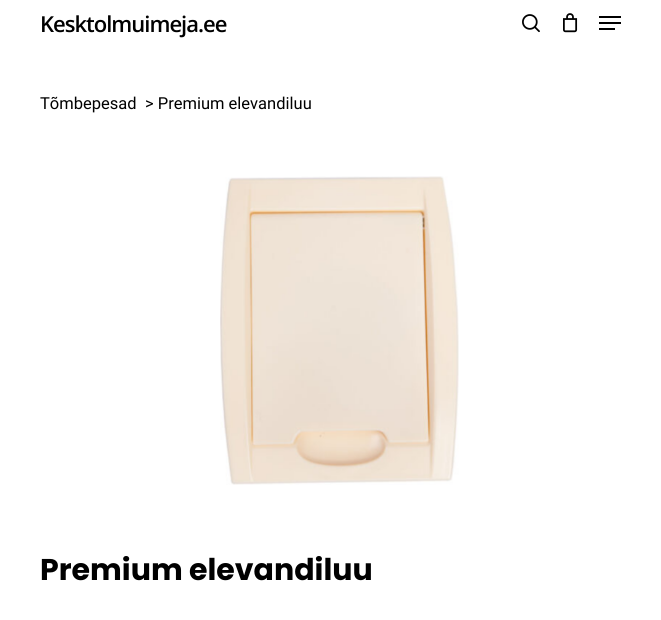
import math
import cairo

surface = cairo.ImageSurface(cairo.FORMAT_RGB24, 661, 620)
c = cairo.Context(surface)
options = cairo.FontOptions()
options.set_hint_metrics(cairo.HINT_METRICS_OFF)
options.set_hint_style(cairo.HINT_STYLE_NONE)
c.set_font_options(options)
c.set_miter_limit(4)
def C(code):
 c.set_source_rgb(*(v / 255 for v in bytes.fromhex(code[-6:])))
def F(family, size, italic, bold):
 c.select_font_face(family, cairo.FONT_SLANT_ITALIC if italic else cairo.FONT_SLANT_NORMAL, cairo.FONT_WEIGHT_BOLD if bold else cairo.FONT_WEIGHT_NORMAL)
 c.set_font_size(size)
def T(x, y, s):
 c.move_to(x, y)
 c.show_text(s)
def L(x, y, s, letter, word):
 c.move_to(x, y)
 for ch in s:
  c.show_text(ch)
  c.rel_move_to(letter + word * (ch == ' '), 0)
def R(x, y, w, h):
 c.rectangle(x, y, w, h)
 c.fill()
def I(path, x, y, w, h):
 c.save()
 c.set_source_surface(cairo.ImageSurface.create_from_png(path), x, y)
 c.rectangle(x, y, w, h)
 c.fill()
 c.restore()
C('ffffff')
c.paint()
F('Open Sans SemiBold',22,0,0)
C('000000')
L(40,32,'Kesktolmuimeja.ee',-1,0)
I('1.png',522,14,18,19)
I('2.png',563,13,15,20)
R(599,16,22,2)
R(599,28,16,2)
R(599,22,22,2)
F('Roboto',16.5,0,0)
T(40,109,'Tõmbepesad')
T(145,109,'> Premium elevandiluu')
I('3.png',220,176,239,309)
F('Poppins',30,0,1)
T(40,580,'Premium elevandiluu')
surface.write_to_png('o.png')
